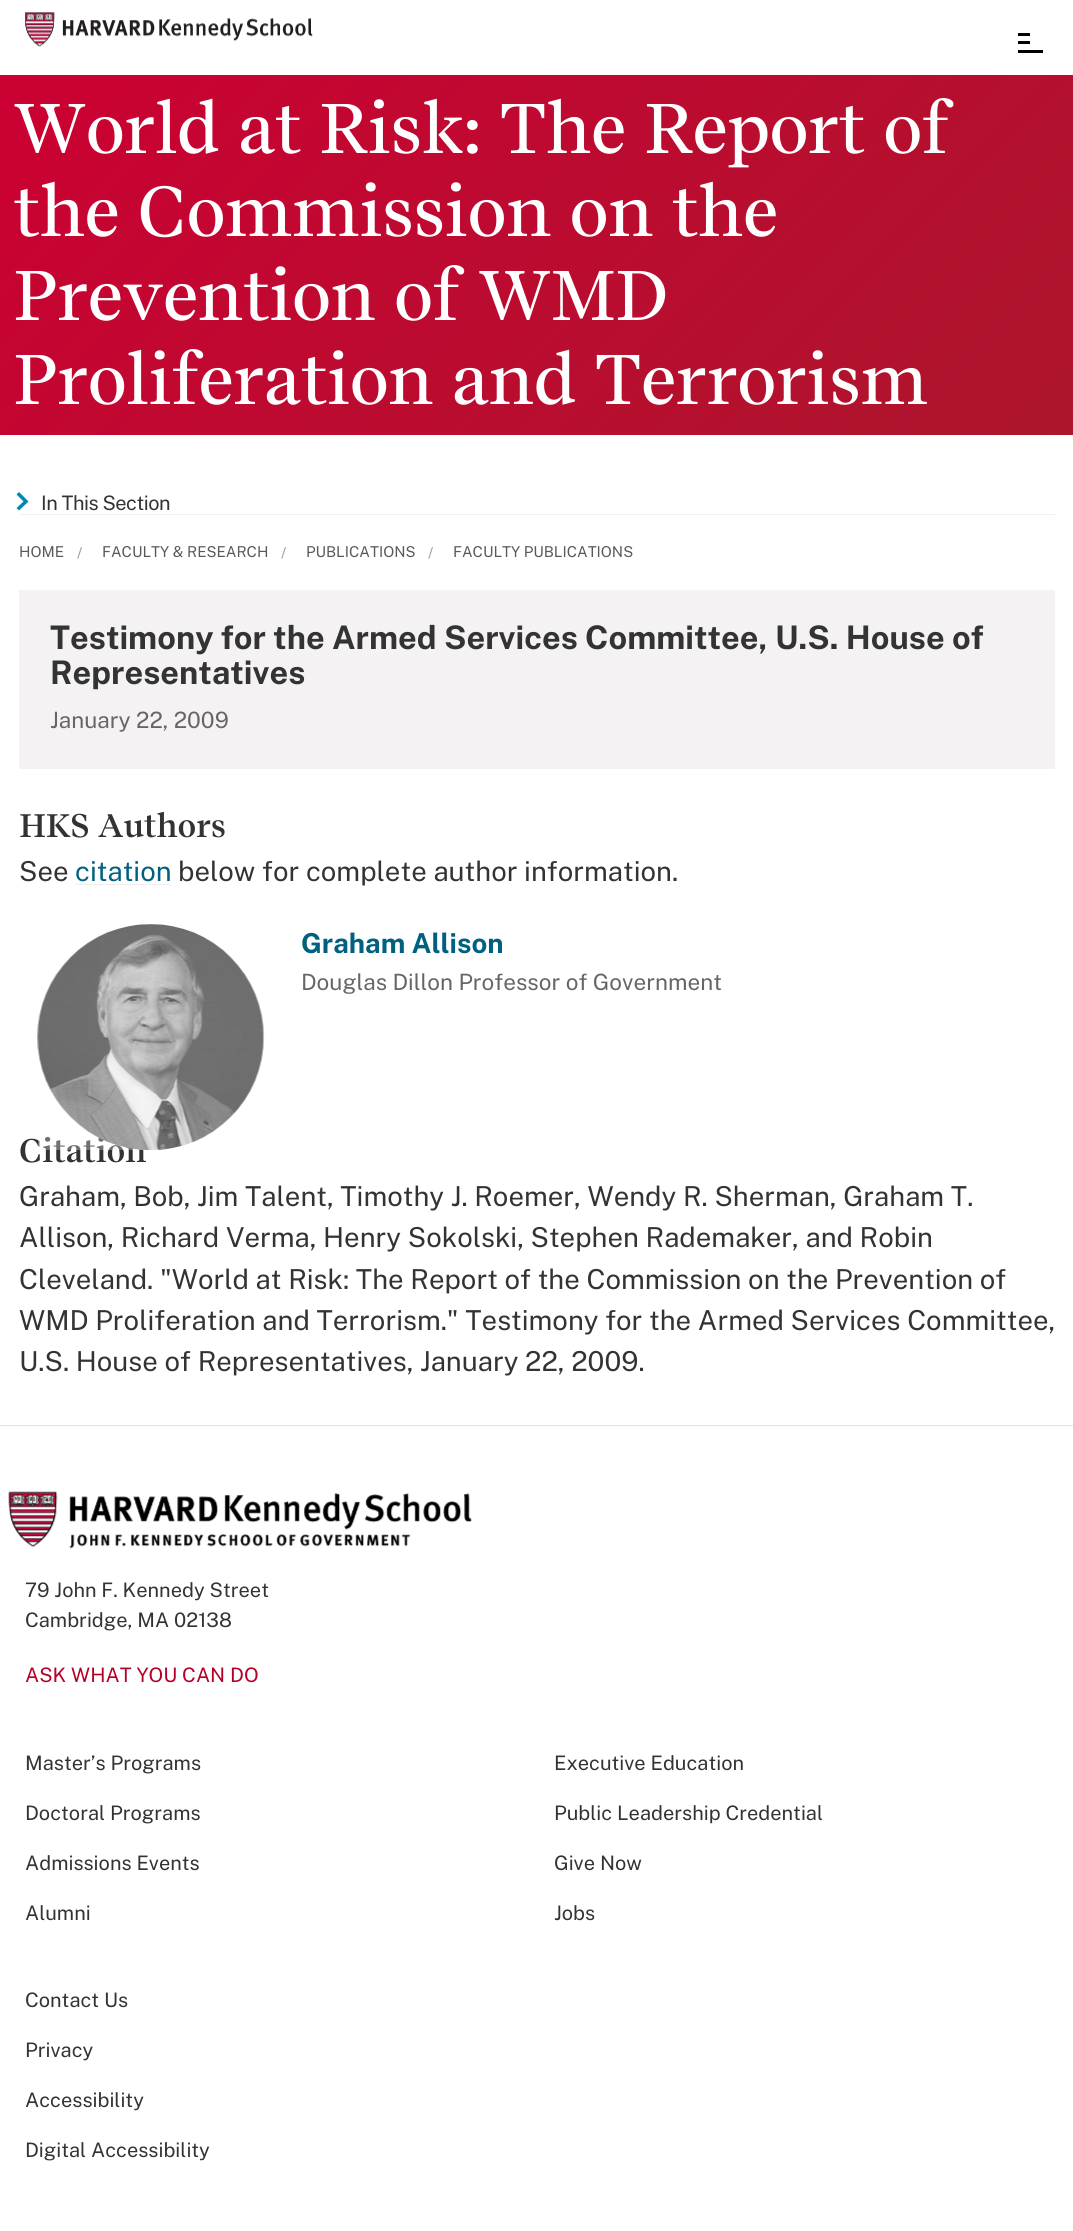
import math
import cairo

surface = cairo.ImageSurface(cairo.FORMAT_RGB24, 1073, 2231)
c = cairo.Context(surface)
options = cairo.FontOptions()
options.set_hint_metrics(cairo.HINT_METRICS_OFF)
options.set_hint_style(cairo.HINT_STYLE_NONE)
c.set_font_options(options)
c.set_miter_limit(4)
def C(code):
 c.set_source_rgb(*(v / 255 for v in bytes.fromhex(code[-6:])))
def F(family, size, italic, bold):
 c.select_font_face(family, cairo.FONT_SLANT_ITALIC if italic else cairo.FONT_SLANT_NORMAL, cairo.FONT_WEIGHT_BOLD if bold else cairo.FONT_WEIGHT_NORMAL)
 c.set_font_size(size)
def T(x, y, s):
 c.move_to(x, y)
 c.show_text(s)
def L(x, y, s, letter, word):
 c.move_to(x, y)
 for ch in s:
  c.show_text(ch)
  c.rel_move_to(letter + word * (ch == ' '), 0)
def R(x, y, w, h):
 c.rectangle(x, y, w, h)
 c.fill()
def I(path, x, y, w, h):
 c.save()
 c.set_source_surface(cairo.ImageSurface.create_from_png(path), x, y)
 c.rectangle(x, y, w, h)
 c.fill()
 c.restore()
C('ffffff')
c.paint()
I('1.png',25,12,288,35)
C('000000')
R(1018,33,12,3)
R(1018,41,12,3)
R(1018,50,25,3)
gradient = cairo.LinearGradient(172,-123,902,607)
gradient.add_color_stop_rgba(0,0.8,0,0.2,1)
gradient.add_color_stop_rgba(1,0.675,0.086,0.173,1)
c.set_source(gradient)
R(0,75,1073,360)
F('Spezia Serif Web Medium',70,0,0)
C('ffffff')
L(13,153,'World at Risk: The Report of',-1.25,0)
L(13,236,'the Commission on the',-1.25,0)
L(13,320,'Prevention of WMD',-1.25,0)
L(13,404,'Proliferation and Terrorism',-1.25,0)
C('eef2f4')
R(19,514,1036,1)
C('0086b3')
c.new_path()
c.move_to(28.5,501.5)
c.line_to(19,492)
c.line_to(16.5,494.5)
c.line_to(23.5,501.5)
c.line_to(16.5,508)
c.line_to(19,510.5)
c.close_path()
c.fill()
F('Public Sans Thin',20,0,0)
C('333333')
L(41,510,'In This Section',-.5,0)
F('Public Sans Thin',15,0,0)
C('595959')
T(19,557,'HOME')
C('999999')
T(77,558,'/')
C('595959')
T(102,557,'FACULTY & RESEARCH')
C('999999')
T(281,558,'/')
C('595959')
T(306,557,'PUBLICATIONS')
C('999999')
T(428,558,'/')
C('595959')
T(453,557,'FACULTY PUBLICATIONS')
C('f4f2f3')
R(19,590,1036,179)
F('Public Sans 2 Thin',32.5,0,0)
C('333333')
T(50,649,'Testimony for the Armed Services Committee, U.S. House of')
T(50,684,'Representatives')
F('Public Sans Thin',22.5,0,0)
C('666666')
T(50,728,'January 22, 2009')
F('Spezia Serif Web SemiBold',32.5,0,0)
C('333333')
L(19,837,'HKS Authors',-.4,0)
F('Public Sans Thin',27.5,0,0)
T(19,881,'See')
C('006080')
T(75,881,'citation')
C('eeeeee')
R(75,884,96,1)
C('333333')
T(178,881,'below for complete author information.')
F('Spezia Serif Web SemiBold',32.5,0,0)
L(19,1162,'Citation',-.4,0)
I('2.png',37,924,228,227)
c.set_source_rgba(1,1,1,0.3)
R(38,924,226,226)
F('Public Sans 2 Thin',27.5,0,0)
C('006080')
T(301,953,'Graham Allison')
F('Public Sans Thin',22.5,0,0)
C('666666')
T(301,990,'Douglas Dillon Professor of Government')
F('Public Sans Thin',27.5,0,0)
C('333333')
T(19,1206,'Graham, Bob, Jim Talent, Timothy J. Roemer, Wendy R. Sherman, Graham T.')
T(19,1247,'Allison, Richard Verma, Henry Sokolski, Stephen Rademaker, and Robin')
T(19,1289,'Cleveland. "World at Risk: The Report of the Commission on the Prevention of')
T(19,1330,'WMD Proliferation and Terrorism." Testimony for the Armed Services Committee,')
T(19,1371,'U.S. House of Representatives, January 22, 2009.')
C('dee5e9')
R(0,1425,1073,1)
I('3.png',8,1491,464,58)
F('Public Sans Thin',20,0,0)
C('333333')
T(25,1597,'79 John F. Kennedy Street')
T(25,1627,'Cambridge, MA 02138')
C('b50027')
T(25,1682,'ASK WHAT YOU CAN DO')
C('333333')
T(25,1770,'Master’s Programs')
T(554,1770,'Executive Education')
T(25,1820,'Doctoral Programs')
T(554,1820,'Public Leadership Credential')
T(25,1870,'Admissions Events')
T(554,1870,'Give Now')
T(25,1920,'Alumni')
T(554,1920,'Jobs')
T(25,2007,'Contact Us')
T(25,2057,'Privacy')
T(25,2107,'Accessibility')
T(25,2157,'Digital Accessibility')
surface.write_to_png('o.png')
